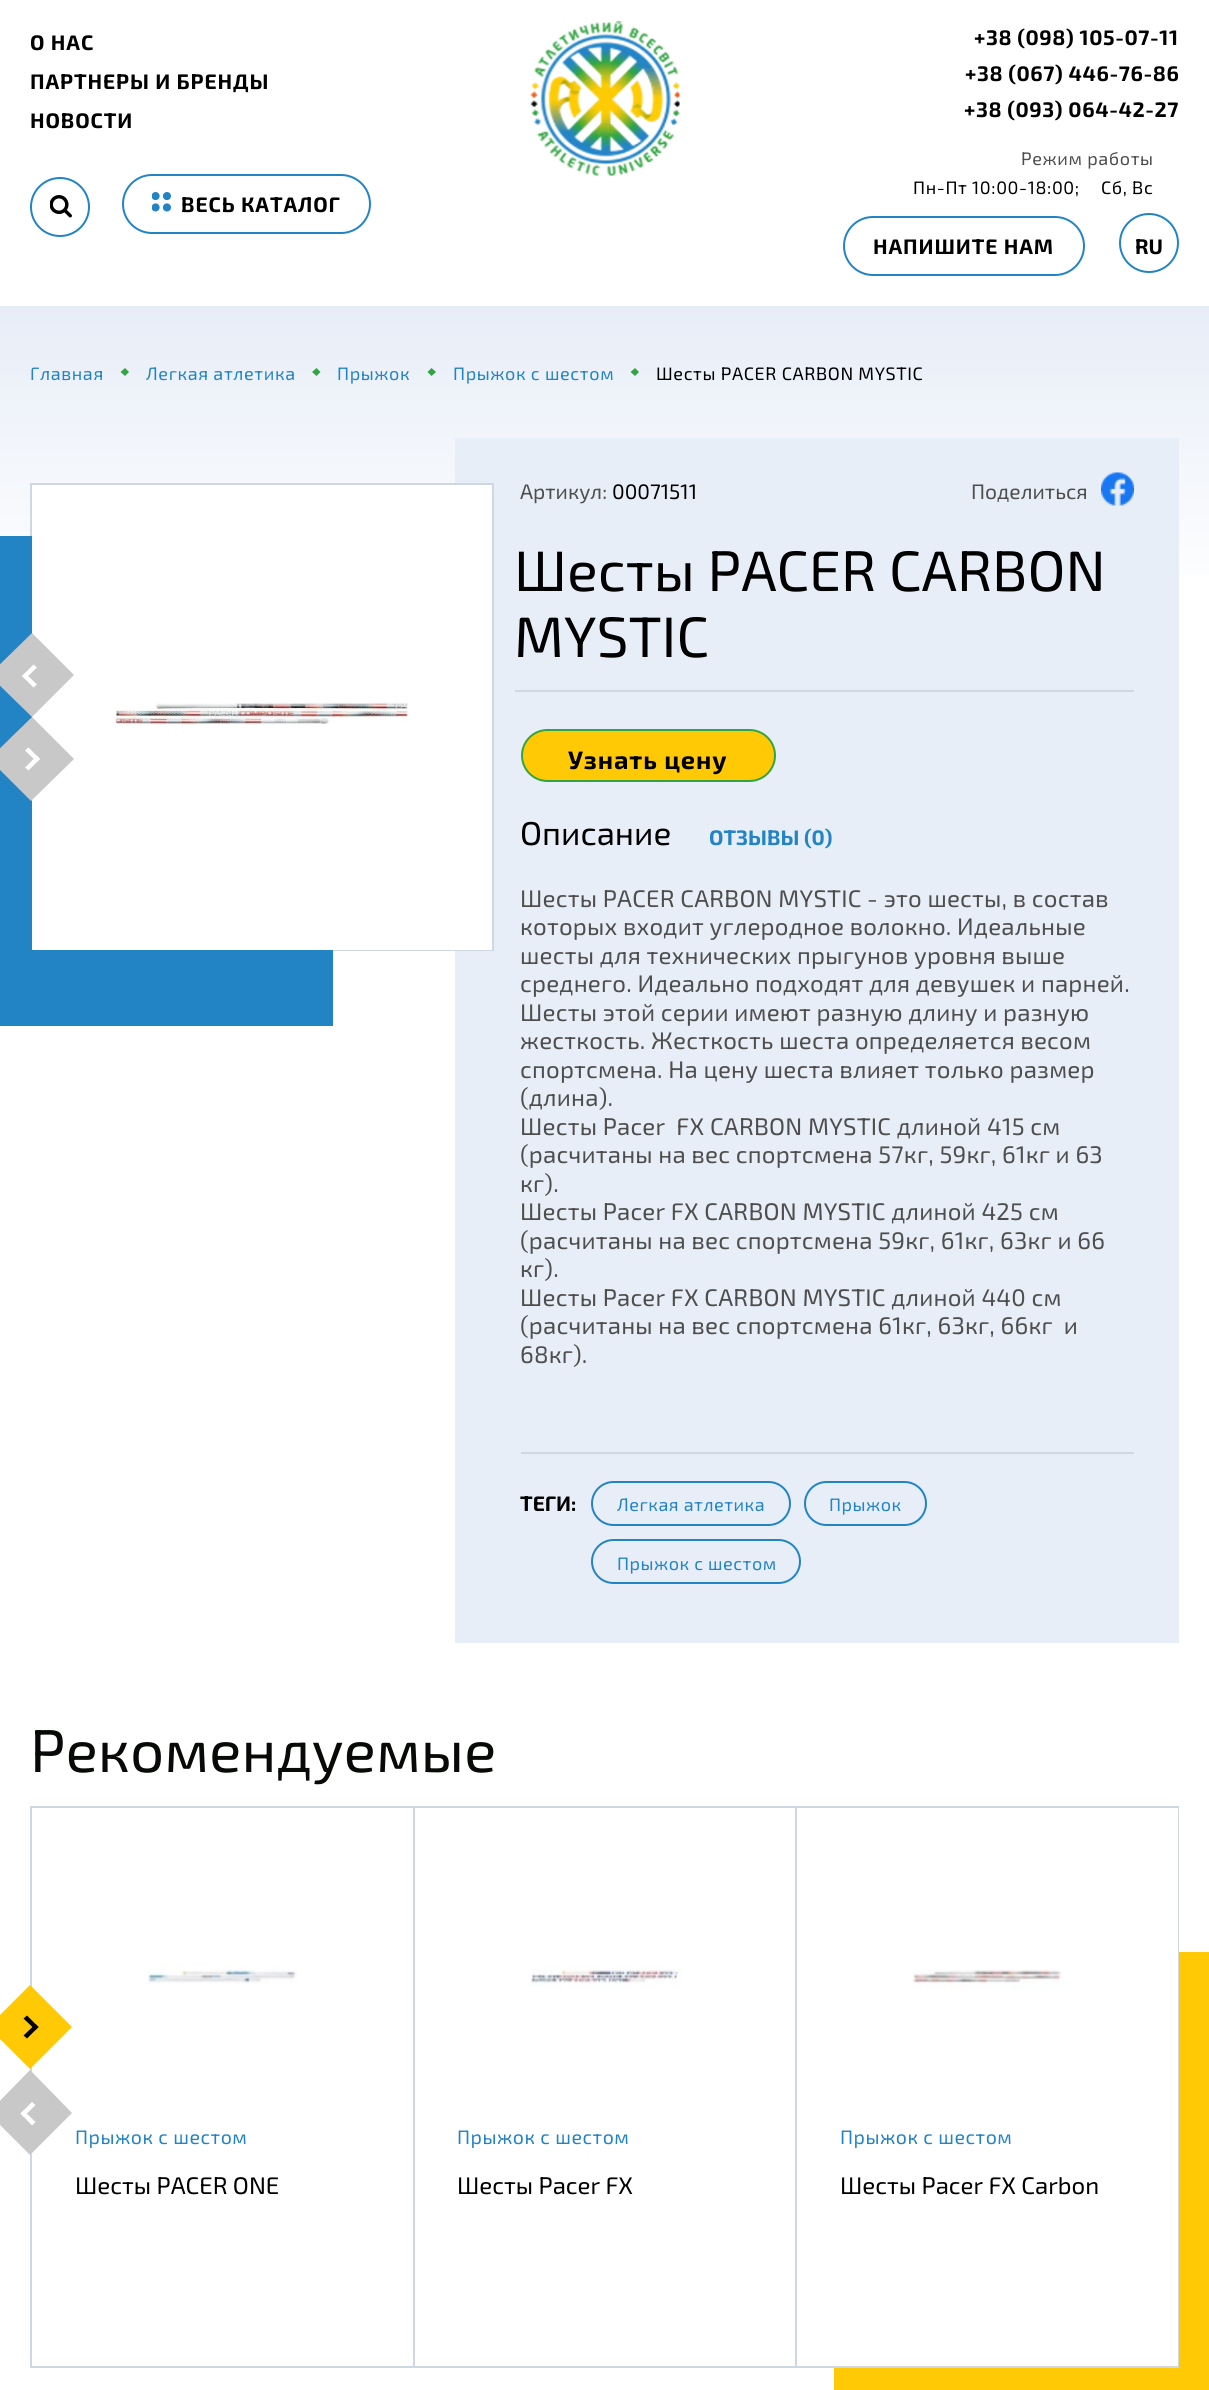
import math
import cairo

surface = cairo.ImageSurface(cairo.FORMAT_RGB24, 1209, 2390)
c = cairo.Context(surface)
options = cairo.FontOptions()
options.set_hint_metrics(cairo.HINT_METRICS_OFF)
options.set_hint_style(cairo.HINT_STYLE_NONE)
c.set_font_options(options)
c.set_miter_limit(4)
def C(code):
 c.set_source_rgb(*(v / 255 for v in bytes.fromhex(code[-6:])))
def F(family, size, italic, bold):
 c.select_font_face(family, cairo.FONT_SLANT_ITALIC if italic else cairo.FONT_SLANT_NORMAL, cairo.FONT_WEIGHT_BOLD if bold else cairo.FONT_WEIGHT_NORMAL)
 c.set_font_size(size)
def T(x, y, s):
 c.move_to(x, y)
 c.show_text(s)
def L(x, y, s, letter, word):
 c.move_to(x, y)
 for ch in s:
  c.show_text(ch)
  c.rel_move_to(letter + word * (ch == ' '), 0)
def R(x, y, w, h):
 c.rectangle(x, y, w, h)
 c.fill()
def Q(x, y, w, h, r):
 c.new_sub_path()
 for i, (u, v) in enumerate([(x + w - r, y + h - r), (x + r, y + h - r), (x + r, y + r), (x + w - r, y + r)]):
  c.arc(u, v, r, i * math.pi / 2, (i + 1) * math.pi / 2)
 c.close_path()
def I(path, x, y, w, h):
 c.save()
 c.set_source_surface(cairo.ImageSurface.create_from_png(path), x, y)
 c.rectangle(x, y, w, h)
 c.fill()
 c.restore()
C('ffffff')
c.paint()
F('Exo 2',21,0,1)
C('000000')
L(30,50,'О НАС',.9,0)
L(30,89,'ПАРТНЕРЫ И БРЕНДЫ',.9,0)
L(30,128,'НОВОСТИ',.9,0)
c.new_path()
c.arc(60,207,29,0,2 * math.pi)
C('2384c5')
c.stroke()
I('1.png',50,195,22,23)
Q(123,175,247,58,29)
c.stroke()
I('2.png',152,192,19,20)
C('000000')
L(181,212,'ВЕСЬ КАТАЛОГ',.9,0)
I('3.png',530,21,150,155)
L(974,45,'+38 (098) 105-07-11',.6,0)
L(965,81,'+38 (067) 446-76-86',.6,0)
L(964,117,'+38 (093) 064-42-27',.6,0)
F('Exo 2',18,0,0)
C('4e4e4e')
L(1021,165,'Режим работы',.6,0)
C('000000')
L(913,194,'Пн-Пт 10:00-18:00;',.6,0)
L(1101,194,'Сб, Вс',.6,0)
Q(844,217,240,58,29)
C('2384c5')
c.stroke()
F('Exo 2',21,0,1)
C('000000')
L(873,254,'НАПИШИТЕ НАМ',.9,0)
c.new_path()
c.arc(1149,243,29,0,2 * math.pi)
C('2384c5')
c.stroke()
C('000000')
T(1135,254,'RU')
gradient = cairo.LinearGradient(605,606,605,306)
gradient.add_color_stop_rgba(0,1,1,1,1)
gradient.add_color_stop_rgba(1,0.906,0.929,0.969,1)
c.set_source(gradient)
R(0,306,1209,269)
F('Exo 2',18,0,0)
C('2384c5')
L(30,380,'Главная',.6,0)
C('33a444')
c.new_path()
c.move_to(125,368)
c.line_to(129,372)
c.line_to(125,376)
c.line_to(120.5,372)
c.close_path()
c.fill()
C('2384c5')
L(146,380,'Легкая атлетика',.6,0)
C('33a444')
c.new_path()
c.move_to(316.5,368)
c.line_to(320.5,372)
c.line_to(316.5,376)
c.line_to(312,372)
c.close_path()
c.fill()
C('2384c5')
L(337,380,'Прыжок',.6,0)
C('33a444')
c.new_path()
c.move_to(431.5,368)
c.line_to(436,372)
c.line_to(431.5,376)
c.line_to(427.5,372)
c.close_path()
c.fill()
C('2384c5')
L(453,380,'Прыжок с шестом',.6,0)
C('33a444')
c.new_path()
c.move_to(635,368)
c.line_to(639,372)
c.line_to(635,376)
c.line_to(630.5,372)
c.close_path()
c.fill()
C('000000')
L(656,380,'Шесты PACER CARBON MYSTIC',.6,0)
C('e8eef7')
R(455,438,724,1205)
c.rectangle(31,484,462,466)
C('cfd7e2')
c.stroke()
C('2384c5')
R(0,536,333,490)
C('ffffff')
R(32,485,460,465)
I('4.png',114,702,295,23)
C('c8c8c8')
c.new_path()
c.move_to(32,633)
c.line_to(74,675)
c.line_to(32,717)
c.line_to(-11,675)
c.close_path()
c.fill()
C('ffffff')
c.new_path()
c.move_to(33.5,687.5)
c.line_to(22,676)
c.line_to(25,673)
c.line_to(37,684.5)
c.close_path()
c.fill()
c.new_path()
c.move_to(25,679)
c.line_to(22,676)
c.line_to(33.5,664.5)
c.line_to(37,667.5)
c.close_path()
c.fill()
C('c8c8c8')
c.new_path()
c.move_to(32,717)
c.line_to(74,759)
c.line_to(31,801)
c.line_to(-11,759)
c.close_path()
c.fill()
C('ffffff')
c.new_path()
c.move_to(28.5,747.5)
c.line_to(40,759)
c.line_to(37,762)
c.line_to(25,750.5)
c.close_path()
c.fill()
c.new_path()
c.move_to(37,755.5)
c.line_to(40,759)
c.line_to(28.5,770.5)
c.line_to(25,767.5)
c.close_path()
c.fill()
F('Exo 2',21,0,0)
C('4e4e4e')
T(520,499,'Артикул:')
C('000000')
T(612,499,'00071511')
C('4e4e4e')
T(971,499,'Поделиться')
I('5.png',1101,472,33,34)
C('cfd7e2')
R(515,690,619,2)
F('Exo 2',57,0,0)
C('000000')
T(514,591,'Шесты PACER CARBON')
T(514,657,'MYSTIC')
C('ffca05')
Q(522,730,253,51,25.5)
c.fill_preserve()
C('33a444')
c.stroke()
F('Exo 2',25.25,0,1)
C('000000')
L(568,769,'Узнать цену',.9,0)
F('Exo 2',33,0,0)
T(520,845,'Описание')
F('Exo 2',21,0,1)
C('2384c5')
T(709,845,'ОТЗЫВЫ (0)')
F('Exo 2',24,0,0)
C('4e4e4e')
L(520,907,'Шесты PACER CARBON MYSTIC - это шесты, в состав',.2,0)
L(520,935,'которых входит углеродное волокно. Идеальные',.2,0)
L(520,964,'шесты для технических прыгунов уровня выше',.2,0)
L(520,992,'среднего. Идеально подходят для девушек и парней.',.2,0)
L(520,1021,'Шесты этой серии имеют разную длину и разную',.2,0)
L(520,1049,'жесткость. Жесткость шеста определяется весом',.2,0)
L(520,1078,'спортсмена. На цену шеста влияет только размер',.2,0)
L(520,1106,'(длина).',.2,0)
L(520,1135,'Шесты Pacer  FX CARBON MYSTIC длиной 415 см',.2,0)
L(520,1163,'(расчитаны на вес спортсмена 57кг, 59кг, 61кг и 63',.2,0)
L(520,1192,'кг).',.2,0)
L(520,1220,'Шесты Pacer FX CARBON MYSTIC длиной 425 см',.2,0)
L(520,1249,'(расчитаны на вес спортсмена 59кг, 61кг, 63кг и 66',.2,0)
L(520,1277,'кг).',.2,0)
L(520,1306,'Шесты Pacer FX CARBON MYSTIC длиной 440 см',.2,0)
L(520,1334,'(расчитаны на вес спортсмена 61кг, 63кг, 66кг  и',.2,0)
L(520,1363,'68кг).',.2,0)
C('cfd7e2')
R(521,1452,613,2)
F('Exo 2',21,0,1)
C('000000')
T(520,1511,'ТЕГИ:')
Q(592,1482,198,43,21.5)
C('2384c5')
c.stroke()
F('Exo 2',18,0,0)
L(617,1511,'Легкая атлетика',.5,0)
Q(805,1482,121,43,21.5)
c.stroke()
L(829,1511,'Прыжок',.5,0)
Q(592,1540,208,43,21.5)
c.stroke()
L(617,1570,'Прыжок с шестом',.5,0)
F('Exo 2',60,0,0)
C('080a07')
T(30,1772,'Рекомендуемые')
C('cfd7e2')
R(30,1806,1148,2)
C('ffca05')
R(834,1952,375,438)
C('cfd7e2')
R(30,2366,1149,2)
R(30,1806,2,561)
C('ffca05')
c.new_path()
c.move_to(30,1985)
c.line_to(72,2027)
c.line_to(30,2069)
c.line_to(-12,2027)
c.close_path()
c.fill()
C('000000')
c.new_path()
c.move_to(27,2015.5)
c.line_to(38.5,2027)
c.line_to(35.5,2030)
c.line_to(23.5,2018.5)
c.close_path()
c.fill()
c.new_path()
c.move_to(35.5,2024)
c.line_to(38.5,2027)
c.line_to(27,2038.5)
c.line_to(23.5,2035.5)
c.close_path()
c.fill()
C('c8c8c8')
c.new_path()
c.move_to(30,2070)
c.line_to(72,2113)
c.line_to(30,2155)
c.line_to(-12,2113)
c.close_path()
c.fill()
C('ffffff')
c.new_path()
c.move_to(32,2125.5)
c.line_to(20.5,2113.5)
c.line_to(23.5,2110.5)
c.line_to(35.5,2122)
c.close_path()
c.fill()
c.new_path()
c.move_to(23.5,2117)
c.line_to(20.5,2113.5)
c.line_to(32,2102)
c.line_to(35.5,2105)
c.close_path()
c.fill()
I('6.png',148,1963,149,21)
F('Exo 2',19.5,0,0)
C('2384c5')
L(75,2144,'Прыжок с шестом',.5,0)
F('Exo 2',24,0,0)
C('000000')
T(75,2194,'Шесты PACER ONE')
C('cfd7e2')
R(413,1806,2,561)
I('7.png',530,1966,152,23)
F('Exo 2',19.5,0,0)
C('2384c5')
L(457,2144,'Прыжок с шестом',.5,0)
F('Exo 2',24,0,0)
C('000000')
T(457,2194,'Шесты Pacer FX')
C('ffffff')
R(834,1952,344,414)
C('cfd7e2')
R(795,1806,2,561)
I('8.png',912,1969,150,21)
F('Exo 2',19.5,0,0)
C('2384c5')
L(840,2144,'Прыжок с шестом',.5,0)
F('Exo 2',24,0,0)
C('000000')
T(840,2194,'Шесты Pacer FX Carbon')
C('cfd7e2')
R(1178,1806,1,561)
surface.write_to_png('o.png')
